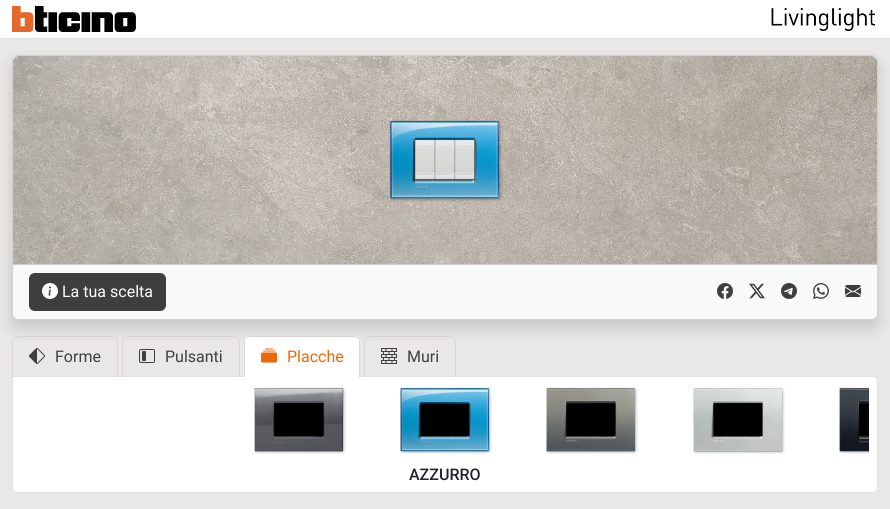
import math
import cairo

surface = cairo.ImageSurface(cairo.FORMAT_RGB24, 890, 509)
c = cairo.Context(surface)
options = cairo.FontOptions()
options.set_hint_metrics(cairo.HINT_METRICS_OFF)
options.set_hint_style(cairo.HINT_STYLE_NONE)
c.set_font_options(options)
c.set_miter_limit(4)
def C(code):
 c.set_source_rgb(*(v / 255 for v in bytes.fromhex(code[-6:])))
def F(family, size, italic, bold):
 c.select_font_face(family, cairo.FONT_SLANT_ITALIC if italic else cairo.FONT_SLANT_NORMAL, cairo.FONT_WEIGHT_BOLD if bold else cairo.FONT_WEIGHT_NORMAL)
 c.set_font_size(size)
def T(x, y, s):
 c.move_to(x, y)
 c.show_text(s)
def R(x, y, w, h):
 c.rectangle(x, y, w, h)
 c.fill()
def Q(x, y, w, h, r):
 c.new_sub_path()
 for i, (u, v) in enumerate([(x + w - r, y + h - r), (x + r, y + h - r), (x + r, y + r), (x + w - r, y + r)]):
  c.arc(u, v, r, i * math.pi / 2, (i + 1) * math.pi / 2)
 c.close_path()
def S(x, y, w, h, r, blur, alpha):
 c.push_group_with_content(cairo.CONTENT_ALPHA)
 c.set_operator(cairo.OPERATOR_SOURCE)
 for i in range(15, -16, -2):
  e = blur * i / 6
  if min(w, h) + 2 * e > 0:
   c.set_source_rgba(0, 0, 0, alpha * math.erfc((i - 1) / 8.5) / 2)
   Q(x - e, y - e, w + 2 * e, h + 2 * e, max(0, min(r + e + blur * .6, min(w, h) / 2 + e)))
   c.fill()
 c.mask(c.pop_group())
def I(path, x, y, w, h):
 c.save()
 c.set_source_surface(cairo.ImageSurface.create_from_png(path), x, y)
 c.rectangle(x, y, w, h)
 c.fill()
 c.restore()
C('ffffff')
c.paint()
C('dee2e6')
R(0,38,890,1)
I('1.png',12,6,124,26)
I('2.png',771,8,104,23)
C('eae7e7')
R(0,39,890,470)
C('dee2e6')
R(12,376,866,1)
C('ddd9d8')
c.set_fill_rule(cairo.FILL_RULE_EVEN_ODD)
c.new_path()
c.move_to(18,336)
c.line_to(112,336)
c.curve_to(115,336,118,339,118,342)
c.line_to(118,377)
c.line_to(12,377)
c.line_to(12,342)
c.curve_to(12,339,15,336,18,336)
c.close_path()
c.move_to(18,337)
c.line_to(112,337)
c.curve_to(115,337,117,339,117,342)
c.line_to(117,377)
c.line_to(13,377)
c.line_to(13,342)
c.curve_to(13,339,15,337,18,337)
c.close_path()
c.fill()
I('12.png',29,348,16,16)
c.new_path()
c.move_to(128,336)
c.line_to(234,336)
c.curve_to(237,336,240,339,240,342)
c.line_to(240,377)
c.line_to(122,377)
c.line_to(122,342)
c.curve_to(122,339,125,336,128,336)
c.close_path()
c.move_to(128,337)
c.line_to(234,337)
c.curve_to(237,337,239,339,239,342)
c.line_to(239,377)
c.line_to(123,377)
c.line_to(123,342)
c.curve_to(123,339,125,337,128,337)
c.close_path()
c.fill()
I('13.png',139,349,16,14)
C('ffffff')
c.new_path()
c.move_to(250,336)
c.line_to(354,336)
c.curve_to(357.5,336,360,338.5,360,342)
c.line_to(360,377)
c.line_to(244,377)
c.line_to(244,342)
c.curve_to(244,338.5,246.5,336,250,336)
c.close_path()
c.fill()
C('ddd9d8')
c.new_path()
c.move_to(250,336)
c.line_to(354,336)
c.curve_to(357,336,360,339,360,342)
c.line_to(360,377)
c.line_to(244,377)
c.line_to(244,342)
c.curve_to(244,339,247,336,250,336)
c.close_path()
c.move_to(250,337)
c.line_to(354,337)
c.curve_to(357,337,359,339,359,342)
c.line_to(359,377)
c.line_to(245,377)
c.line_to(245,342)
c.curve_to(245,339,247,337,250,337)
c.close_path()
c.fill()
I('14.png',261,348,16,15)
c.new_path()
c.move_to(370,336)
c.line_to(450,336)
c.curve_to(453,336,456,339,456,342)
c.line_to(456,377)
c.line_to(364,377)
c.line_to(364,342)
c.curve_to(364,339,367,336,370,336)
c.close_path()
c.move_to(370,337)
c.line_to(450,337)
c.curve_to(453,337,455,339,455,342)
c.line_to(455,377)
c.line_to(365,377)
c.line_to(365,342)
c.curve_to(365,339,367,337,370,337)
c.close_path()
c.fill()
I('15.png',381,348,16,16)
C('000000')
S(12,63,866,265,6,8,.15)
C('ffffff')
Q(12,55,866,265,6)
c.fill()
Q(12.5,55.5,865,264,5.5)
c.set_source_rgba(0,0,0,0.18)
c.set_line_width(1)
c.stroke()
I('3.png',13,56,864,208)
I('4.png',389,120,114,82)
I('5.png',414,139,61,41)
c.set_source_rgba(0.129,0.145,0.161,0.03)
R(13,265,864,54)
C('cdcdcd')
R(13,264,864,1)
C('3f3d3d')
Q(29.5,273.5,136,37,5.5)
c.fill_preserve()
c.stroke()
I('6.png',42,283,16,16)
F('Roboto',16,0,0)
C('ffffff')
T(62,297,'La tua scelta')
I('7.png',717,283,16,16)
I('8.png',749,283,16,16)
I('9.png',781,283,16,16)
I('10.png',813,283,16,16)
I('11.png',845,285,16,12)
C('3f3d3d')
T(55,362,'Forme')
T(165,362,'Pulsanti')
C('ec680b')
T(287,362,'Placche')
C('3f3d3d')
T(407,362,'Muri')
C('ffffff')
c.new_path()
c.move_to(12,377)
c.line_to(872,377)
c.curve_to(875.5,377,878,379.5,878,383)
c.line_to(878,487)
c.curve_to(878,490.5,875.5,493,872,493)
c.line_to(18,493)
c.curve_to(14.5,493,12,490.5,12,487)
c.close_path()
c.fill()
C('dee2e6')
c.new_path()
c.move_to(12,377)
c.line_to(872,377)
c.curve_to(875,377,878,380,878,383)
c.line_to(878,487)
c.curve_to(878,490,875,493,872,493)
c.line_to(18,493)
c.curve_to(15,493,12,490,12,487)
c.close_path()
c.move_to(13,377)
c.line_to(872,377)
c.curve_to(875,377,877,380,877,383)
c.line_to(877,487)
c.curve_to(877,490,875,492,872,492)
c.line_to(18,492)
c.curve_to(15,492,13,490,13,487)
c.close_path()
c.fill()
I('16.png',254,387,92,67)
I('17.png',400,387,92,67)
I('18.png',546,387,92,67)
I('19.png',693,387,92,67)
I('20.png',839,387,30,67)
F('Roboto Medium',16,0,0)
C('212529')
T(409,480,'AZZURRO')
surface.write_to_png('o.png')
